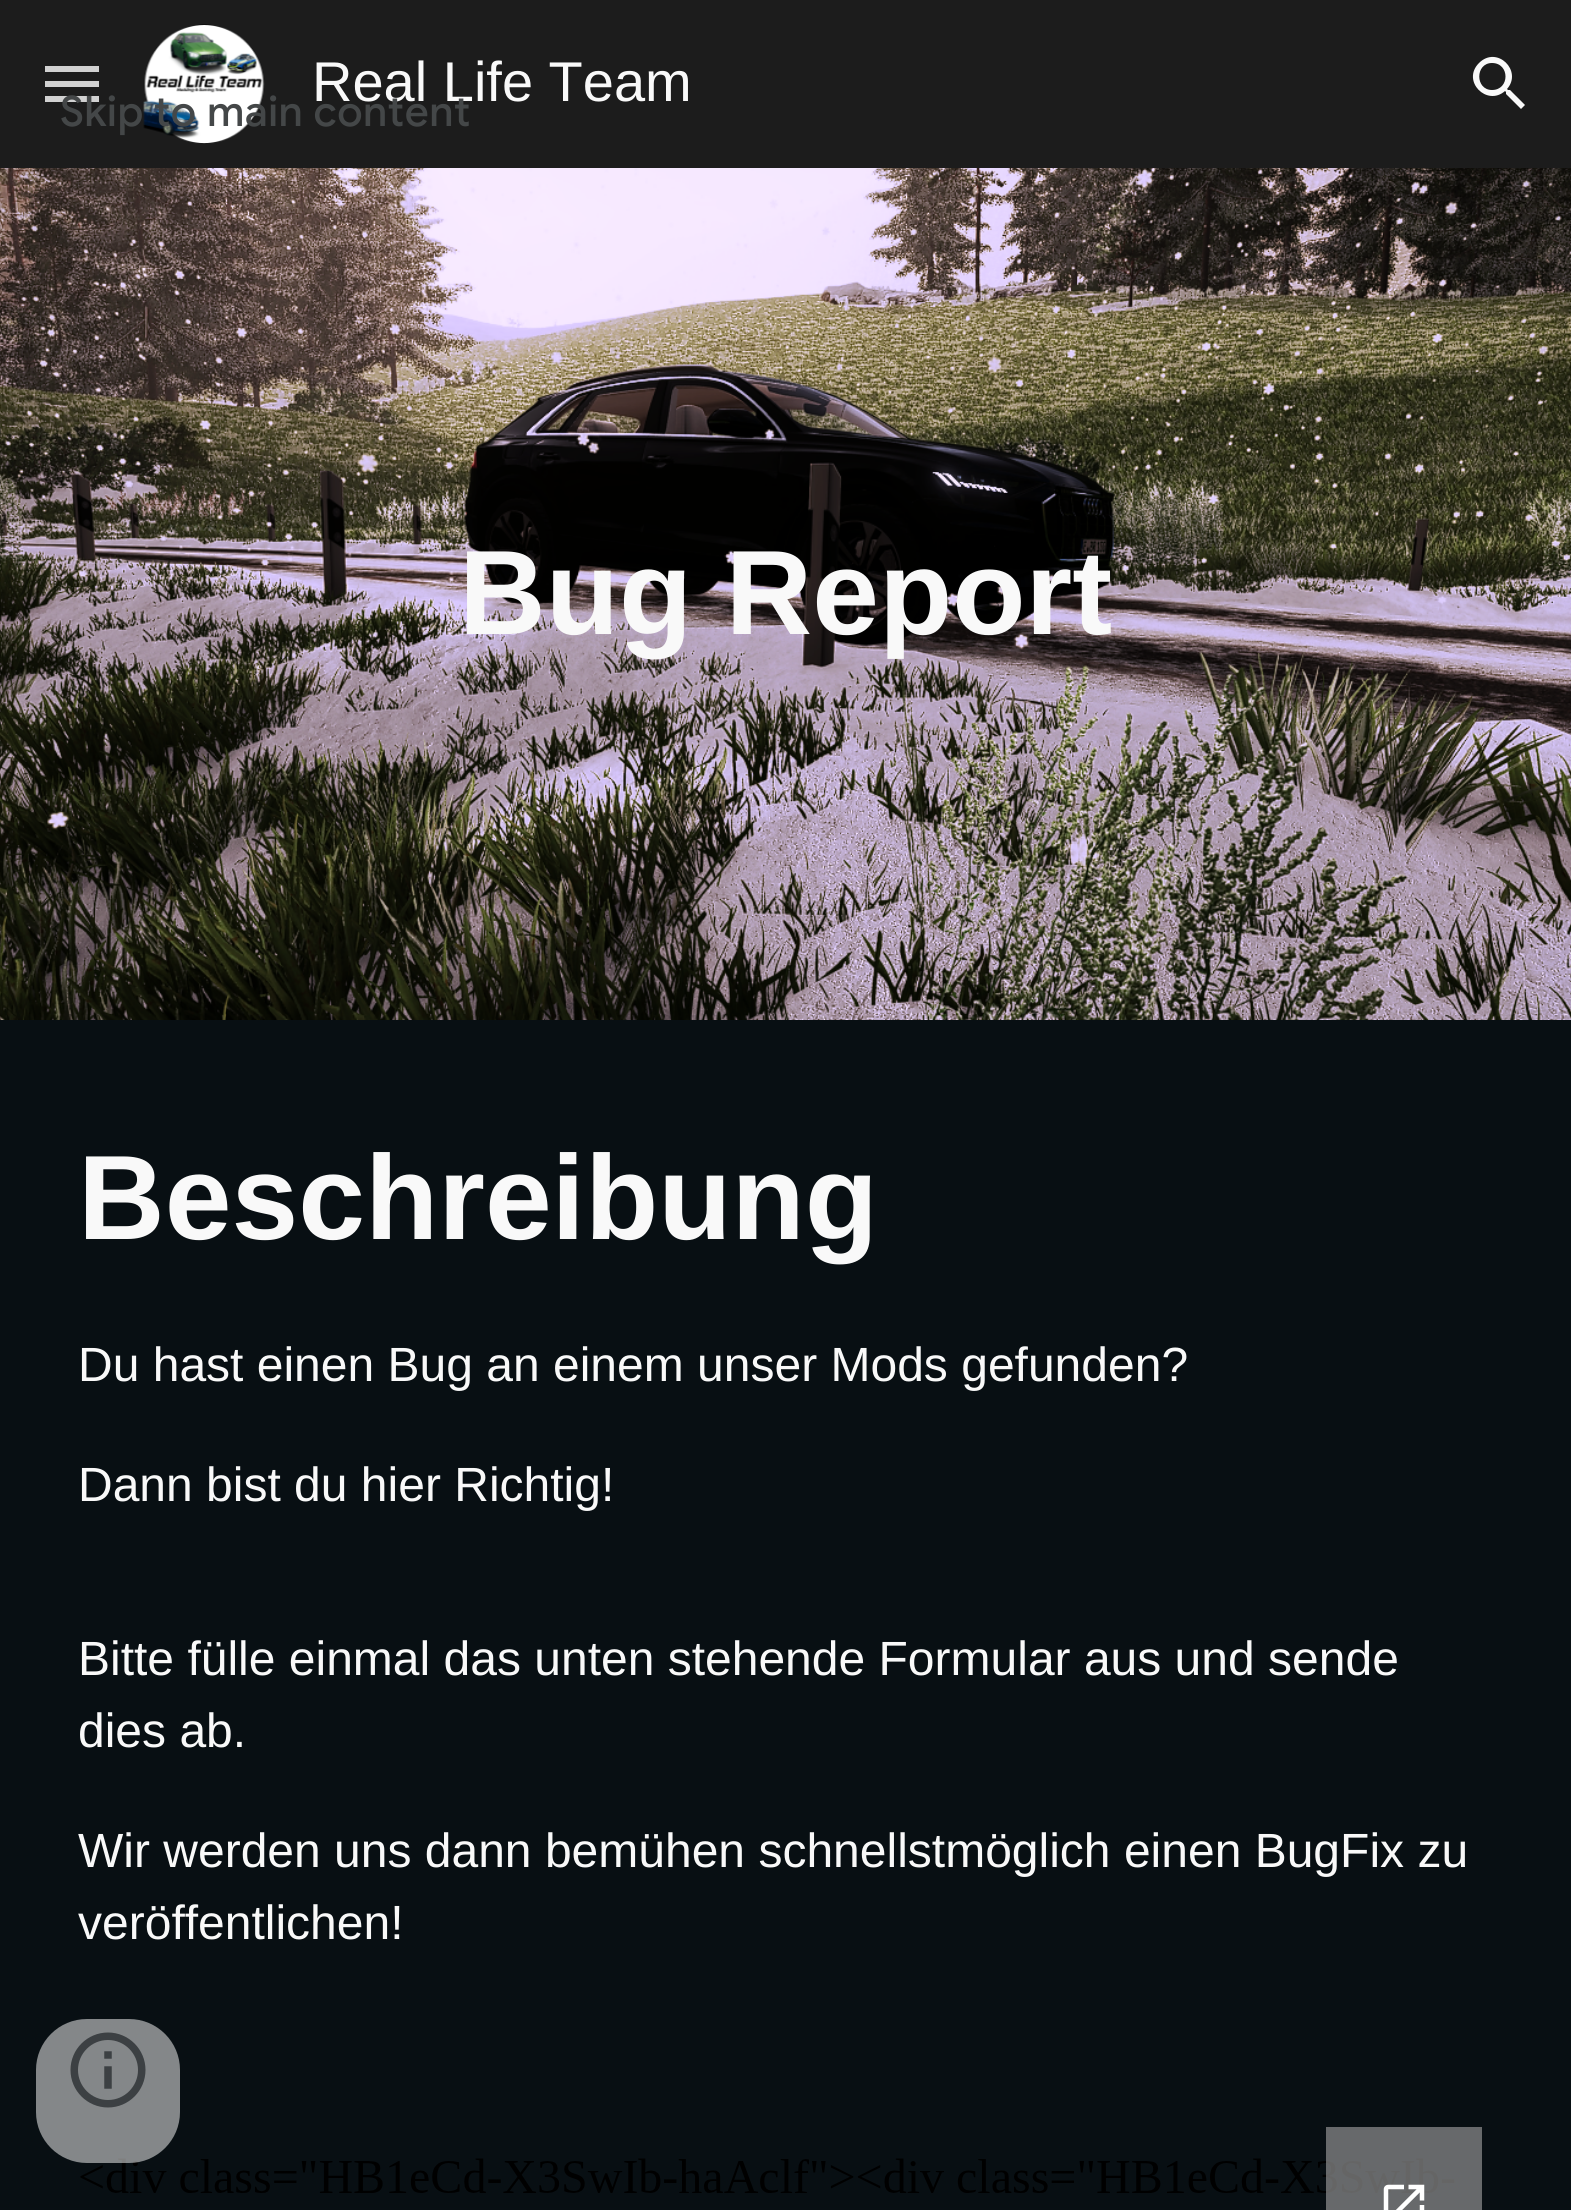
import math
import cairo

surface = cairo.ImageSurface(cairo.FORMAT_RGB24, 1571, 2210)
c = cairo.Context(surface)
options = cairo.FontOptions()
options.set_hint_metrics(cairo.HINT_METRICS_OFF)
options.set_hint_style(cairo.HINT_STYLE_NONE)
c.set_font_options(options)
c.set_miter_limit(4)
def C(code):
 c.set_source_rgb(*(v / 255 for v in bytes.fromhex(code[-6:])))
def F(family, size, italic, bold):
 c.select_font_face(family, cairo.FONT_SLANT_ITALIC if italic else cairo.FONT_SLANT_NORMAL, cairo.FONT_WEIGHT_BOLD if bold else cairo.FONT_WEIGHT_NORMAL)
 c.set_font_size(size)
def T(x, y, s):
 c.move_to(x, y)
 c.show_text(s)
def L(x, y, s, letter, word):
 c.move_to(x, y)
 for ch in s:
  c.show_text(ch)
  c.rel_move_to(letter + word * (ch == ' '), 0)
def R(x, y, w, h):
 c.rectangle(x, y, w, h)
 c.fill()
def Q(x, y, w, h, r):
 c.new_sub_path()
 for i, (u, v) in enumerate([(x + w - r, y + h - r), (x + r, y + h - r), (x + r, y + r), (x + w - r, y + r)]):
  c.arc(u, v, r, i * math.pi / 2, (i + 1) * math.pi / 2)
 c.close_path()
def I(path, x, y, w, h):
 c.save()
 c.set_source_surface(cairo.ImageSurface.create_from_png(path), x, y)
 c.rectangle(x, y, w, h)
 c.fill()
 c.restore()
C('080f13')
c.paint()
C('1c1c1c')
R(0,0,1571,168)
C('d1d1d1')
R(45,66,54,6)
R(45,81,54,6)
R(45,96,54,6)
I('1.png',143,24,122,120)
F('Liberation Sans',56,0,0)
C('f9f9f9')
T(312,101,'Real Life Team')
c.new_path()
c.move_to(1510,90)
c.line_to(1508,90)
c.line_to(1507,89)
c.curve_to(1523,71,1497,45,1479,63)
c.curve_to(1461,81,1487,107,1505,91)
c.line_to(1506,92)
c.line_to(1506,94)
c.line_to(1521,109)
c.line_to(1525,105)
c.close_path()
c.move_to(1492,90)
c.curve_to(1475,90,1475,63,1492,63)
c.curve_to(1510,63,1510,90,1492,90)
c.close_path()
c.fill()
I('2.png',0,168,1571,852)
F('Liberation Sans',120,0,1)
T(459,634,'Bug Report')
T(78,1239,'Beschreibung')
F('Liberation Sans',48,0,0)
T(78,1381,'Du hast einen Bug an einem unser Mods gefunden?')
T(78,1501,'Dann bist du hier Richtig!')
T(78,1675,'Bitte fülle einmal das unten stehende Formular aus und sende')
T(78,1747,'dies ab.')
T(78,1867,'Wir werden uns dann bemühen schnellstmöglich einen BugFix zu')
T(78,1939,'veröffentlichen!')
I('4.png',80,2158,1375,35)
c.set_source_rgba(0.569,0.569,0.569,0.7)
R(1326,2127,156,83)
I('3.png',1383,2184,42,26)
c.set_source_rgba(1,1,1,0.5)
Q(36,2019,144,144,51)
c.fill()
I('5.png',70,2032,76,76)
F('Google Sans Medium',42,0,0)
C('444748')
L(60,126,'Skip to main content',.5,0)
surface.write_to_png('o.png')
